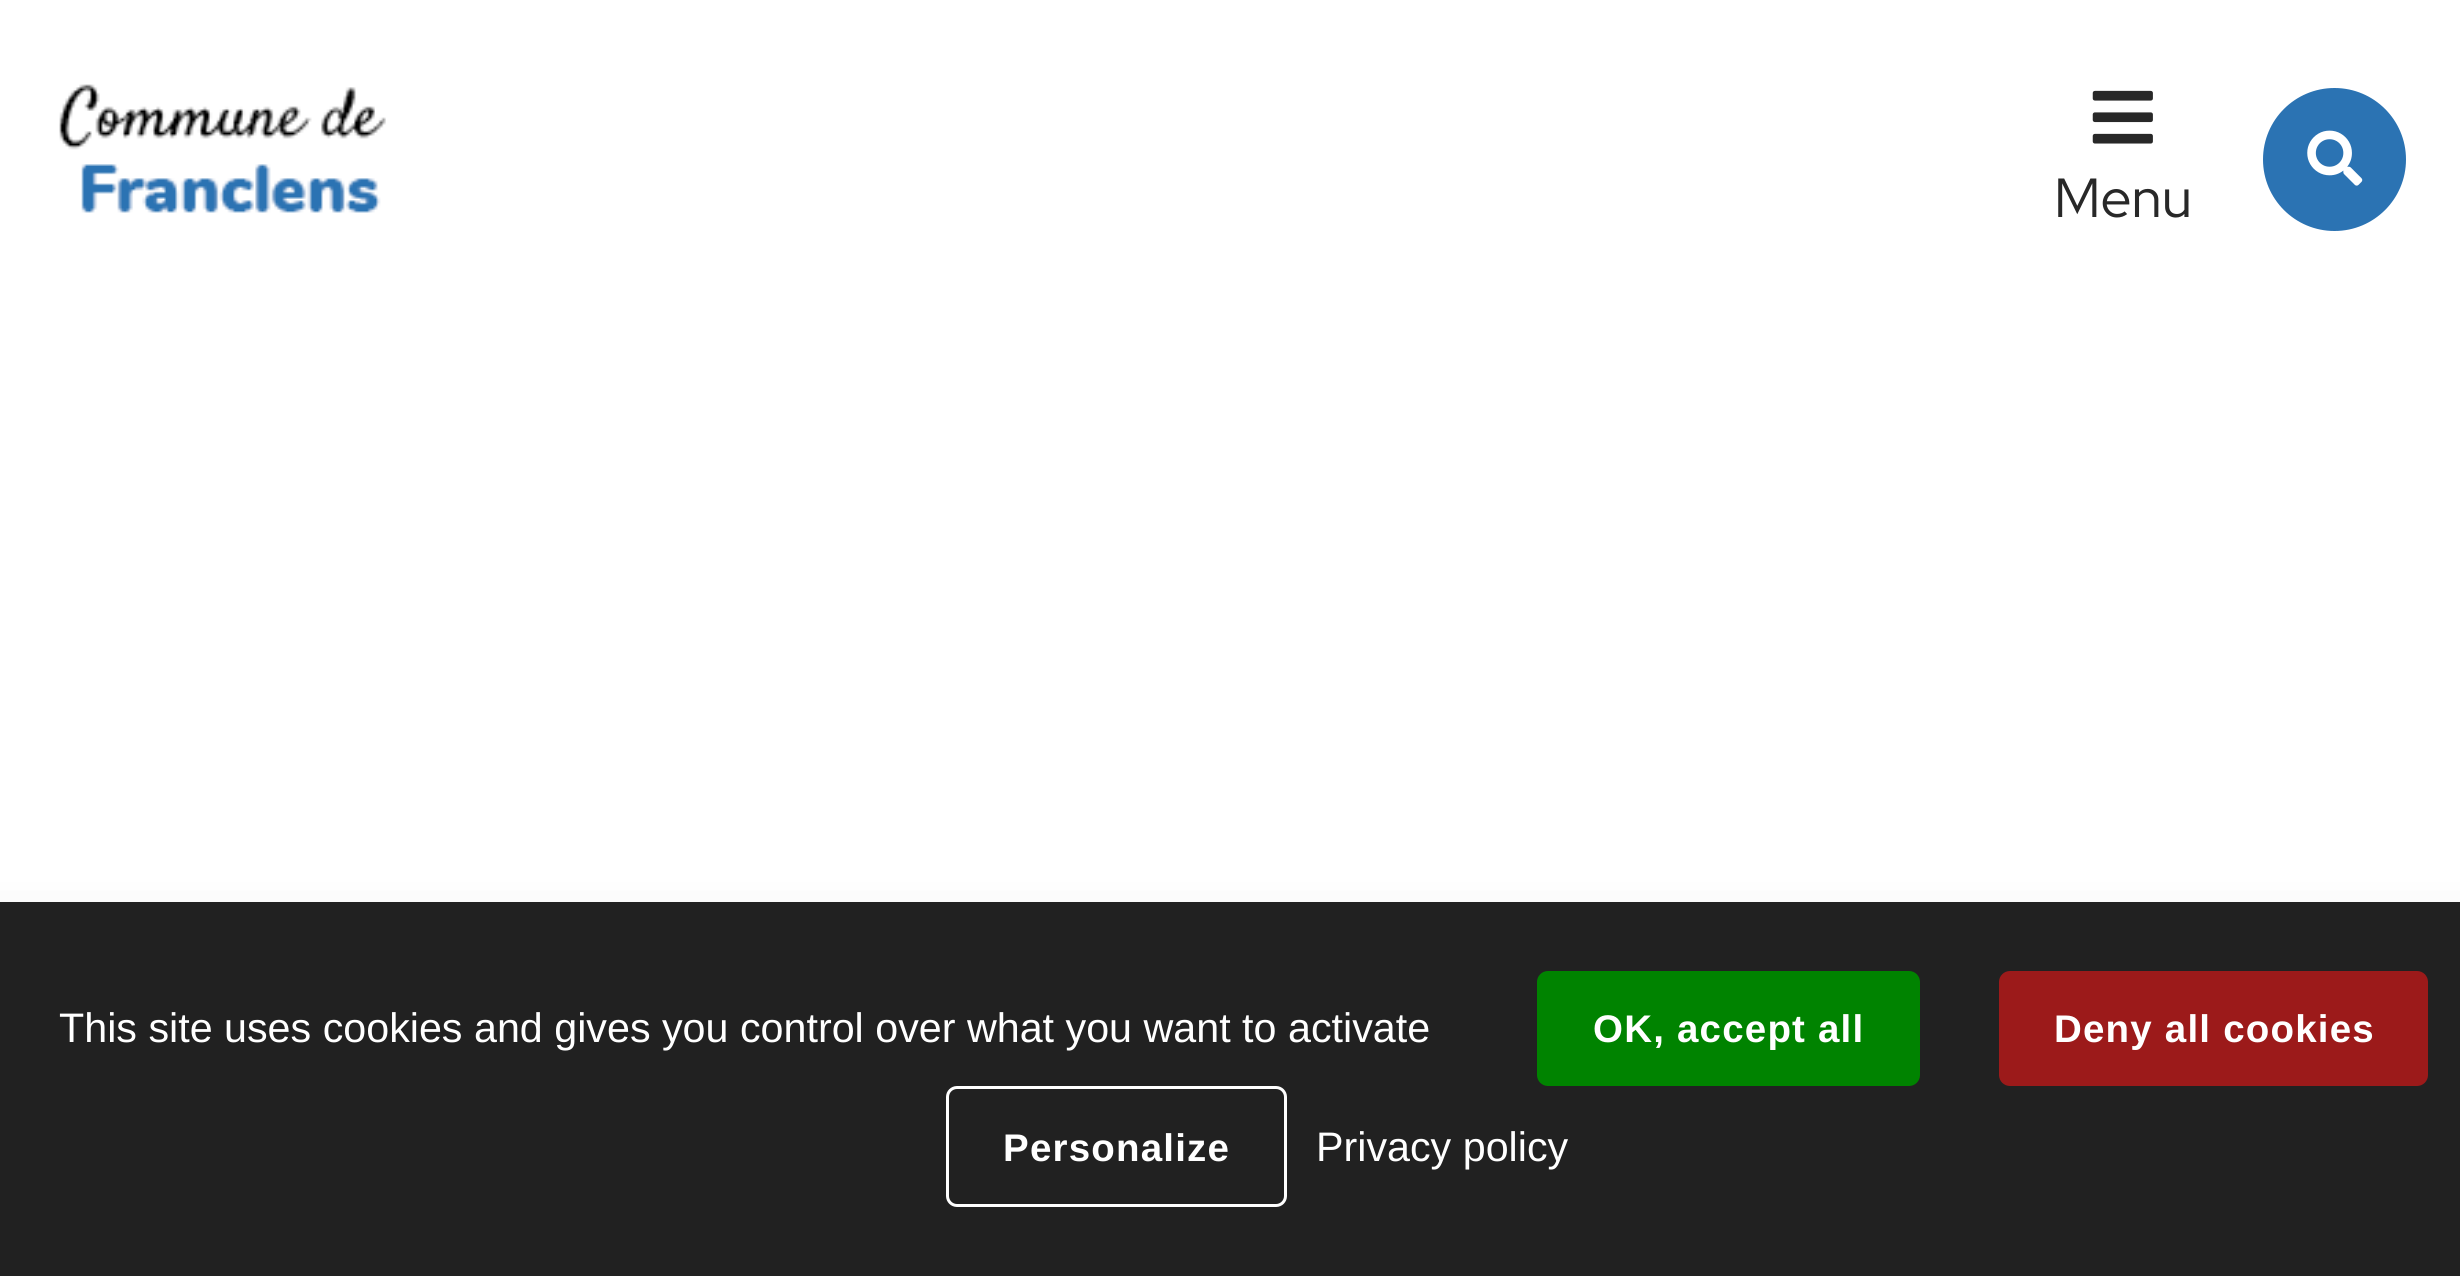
import math
import cairo

surface = cairo.ImageSurface(cairo.FORMAT_RGB24, 2460, 1276)
c = cairo.Context(surface)
options = cairo.FontOptions()
options.set_hint_metrics(cairo.HINT_METRICS_OFF)
options.set_hint_style(cairo.HINT_STYLE_NONE)
c.set_font_options(options)
c.set_miter_limit(4)
def C(code):
 c.set_source_rgb(*(v / 255 for v in bytes.fromhex(code[-6:])))
def F(family, size, italic, bold):
 c.select_font_face(family, cairo.FONT_SLANT_ITALIC if italic else cairo.FONT_SLANT_NORMAL, cairo.FONT_WEIGHT_BOLD if bold else cairo.FONT_WEIGHT_NORMAL)
 c.set_font_size(size)
def T(x, y, s):
 c.move_to(x, y)
 c.show_text(s)
def L(x, y, s, letter, word):
 c.move_to(x, y)
 for ch in s:
  c.show_text(ch)
  c.rel_move_to(letter + word * (ch == ' '), 0)
def R(x, y, w, h):
 c.rectangle(x, y, w, h)
 c.fill()
def Q(x, y, w, h, r):
 c.new_sub_path()
 for i, (u, v) in enumerate([(x + w - r, y + h - r), (x + r, y + h - r), (x + r, y + r), (x + w - r, y + r)]):
  c.arc(u, v, r, i * math.pi / 2, (i + 1) * math.pi / 2)
 c.close_path()
def S(x, y, w, h, r, blur, alpha):
 c.push_group_with_content(cairo.CONTENT_ALPHA)
 c.set_operator(cairo.OPERATOR_SOURCE)
 for i in range(15, -16, -2):
  e = blur * i / 6
  if min(w, h) + 2 * e > 0:
   c.set_source_rgba(0, 0, 0, alpha * math.erfc((i - 1) / 8.5) / 2)
   Q(x - e, y - e, w + 2 * e, h + 2 * e, max(0, min(r + e + blur * .6, min(w, h) / 2 + e)))
   c.fill()
 c.mask(c.pop_group())
def I(path, x, y, w, h):
 c.save()
 c.set_source_surface(cairo.ImageSurface.create_from_png(path), x, y)
 c.rectangle(x, y, w, h)
 c.fill()
 c.restore()
C('ffffff')
c.paint()
I('1.png',59,84,327,129)
I('2.png',2092,90,61,54)
F('Red Hat Display',55,0,0)
C('282828')
T(2054,217,'Menu')
C('2b73b3')
c.new_path()
c.arc(2334.5,159.5,68.5,0,2 * math.pi)
c.fill_preserve()
c.set_line_width(6)
c.stroke()
I('3.png',2307,130,56,56)
C('282828')
S(-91,932,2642,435,8,27.5,.15)
C('212121')
R(0,902,2460,374)
F('Liberation Sans',41.25,0,0)
C('ffffff')
T(59,1042,'This site uses cookies and gives you control over what you want to activate')
C('008300')
Q(1537,971,383,115,11)
c.fill()
F('Liberation Sans',38.5,0,1)
C('ffffff')
L(1593,1042,'OK, accept all',1.2,0)
C('9c1a1a')
Q(1999,971,429,115,11)
c.fill()
C('ffffff')
L(2054,1042,'Deny all cookies',1.2,0)
Q(947.5,1087.5,338,118,9.5)
c.set_line_width(3)
c.stroke()
L(1003,1161,'Personalize',1.2,0)
F('Liberation Sans',41.25,0,0)
T(1316,1161,'Privacy policy')
surface.write_to_png('o.png')
